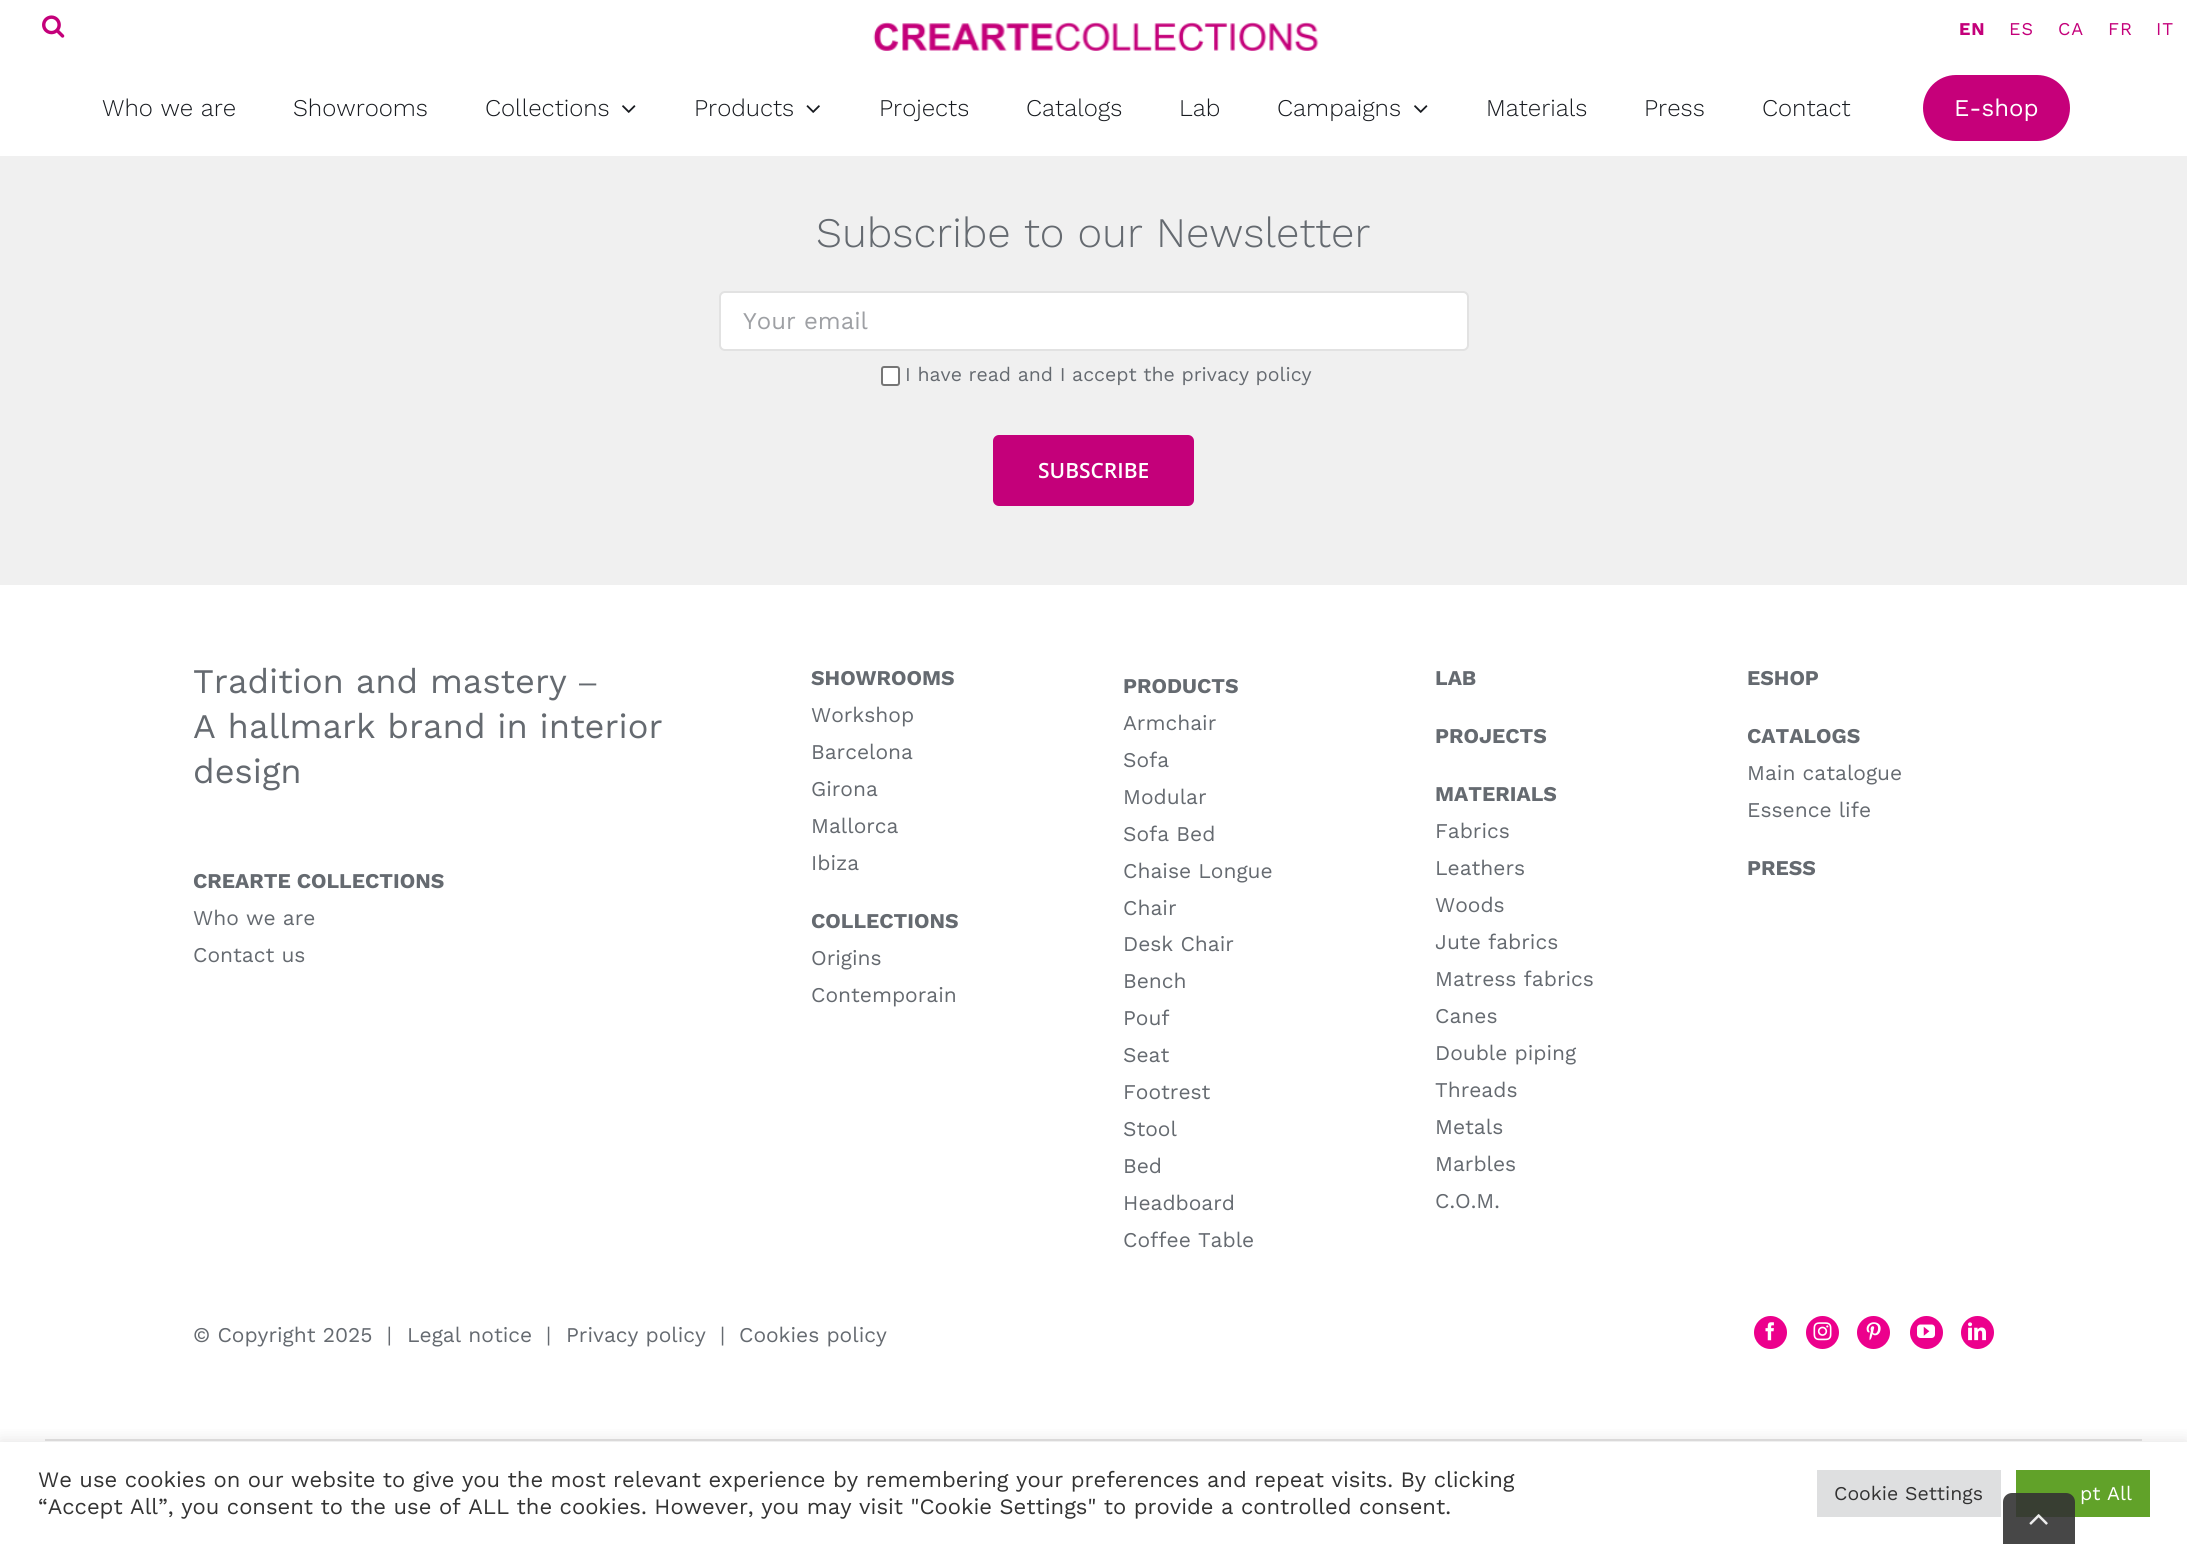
import math
import cairo

surface = cairo.ImageSurface(cairo.FORMAT_RGB24, 2187, 1544)
c = cairo.Context(surface)
options = cairo.FontOptions()
options.set_hint_metrics(cairo.HINT_METRICS_OFF)
options.set_hint_style(cairo.HINT_STYLE_NONE)
c.set_font_options(options)
c.set_miter_limit(4)
def C(code):
 c.set_source_rgb(*(v / 255 for v in bytes.fromhex(code[-6:])))
def F(family, size, italic, bold):
 c.select_font_face(family, cairo.FONT_SLANT_ITALIC if italic else cairo.FONT_SLANT_NORMAL, cairo.FONT_WEIGHT_BOLD if bold else cairo.FONT_WEIGHT_NORMAL)
 c.set_font_size(size)
def T(x, y, s):
 c.move_to(x, y)
 c.show_text(s)
def L(x, y, s, letter, word):
 c.move_to(x, y)
 for ch in s:
  c.show_text(ch)
  c.rel_move_to(letter + word * (ch == ' '), 0)
def R(x, y, w, h):
 c.rectangle(x, y, w, h)
 c.fill()
def Q(x, y, w, h, r):
 c.new_sub_path()
 for i, (u, v) in enumerate([(x + w - r, y + h - r), (x + r, y + h - r), (x + r, y + r), (x + w - r, y + r)]):
  c.arc(u, v, r, i * math.pi / 2, (i + 1) * math.pi / 2)
 c.close_path()
def S(x, y, w, h, r, blur, alpha):
 c.push_group_with_content(cairo.CONTENT_ALPHA)
 c.set_operator(cairo.OPERATOR_SOURCE)
 for i in range(15, -16, -2):
  e = blur * i / 6
  if min(w, h) + 2 * e > 0:
   c.set_source_rgba(0, 0, 0, alpha * math.erfc((i - 1) / 8.5) / 2)
   Q(x - e, y - e, w + 2 * e, h + 2 * e, max(0, min(r + e + blur * .6, min(w, h) / 2 + e)))
   c.fill()
 c.mask(c.pop_group())
def I(path, x, y, w, h):
 c.save()
 c.set_source_surface(cairo.ImageSurface.create_from_png(path), x, y)
 c.rectangle(x, y, w, h)
 c.fill()
 c.restore()
C('ffffff')
c.paint()
I('1.png',873,22,446,29)
I('2.png',42,15,23,23)
F('Work Sans',18,0,1)
C('c4007a')
L(1959,35,'EN',1,0)
F('Work Sans',18,0,0)
L(2009,35,'ES',1,0)
L(2058,35,'CA',1,0)
L(2108,35,'FR',1,0)
L(2156,35,'IT',1,0)
F('Work Sans Light',24,0,0)
C('181b20')
T(102,116,'Who we are')
T(293,116,'Showrooms')
T(485,116,'Collections')
I('3.png',622,105,14,8)
T(694,116,'Products')
I('4.png',806,105,14,8)
T(879,116,'Projects')
T(1026,116,'Catalogs')
T(1179,116,'Lab')
T(1277,116,'Campaigns')
I('3.png',1414,105,14,8)
T(1486,116,'Materials')
T(1644,116,'Press')
T(1762,116,'Contact')
C('c6007a')
Q(1924,76,145,64,32)
c.fill_preserve()
c.stroke()
F('Work Sans',24,0,0)
C('ffffff')
T(1954,116,'E-shop')
C('f0f0f0')
R(0,156,2187,429)
F('Work Sans Light',42,0,0)
C('656a70')
T(816,247,'Subscribe to our Newsletter')
C('ffffff')
Q(720,292,748,58,5)
c.fill_preserve()
C('e2e2e2')
c.stroke()
F('Work Sans',24,0,0)
C('9ea0a4')
T(743,329,'Your email')
C('ffffff')
Q(882,367,17,18,2)
c.fill_preserve()
C('767676')
c.stroke()
F('Work Sans',19.5,0,0)
C('656a70')
T(905,381,'I have read and I accept the privacy policy')
C('c4007a')
Q(994,436,199,69,5)
c.fill_preserve()
c.stroke()
F('Open Sans SemiBold',21,0,0)
C('ffffff')
T(1038,478,'SUBSCRIBE')
F('Work Sans',34.5,0,0)
C('656a70')
T(193,693,'Tradition and mastery')
F('FreeSans',34.5,0,0)
T(579,693,'⎯')
F('Work Sans',34.5,0,0)
T(193,738,'A hallmark brand in interior')
T(193,783,'design')
F('Work Sans',21,0,1)
T(193,888,'CREARTE COLLECTIONS')
F('Work Sans',21,0,0)
T(193,925,'Who we are')
T(193,962,'Contact us')
F('Work Sans',21,0,1)
T(811,685,'SHOWROOMS')
F('Work Sans',21,0,0)
T(811,722,'Workshop')
T(811,759,'Barcelona')
T(811,796,'Girona')
T(811,833,'Mallorca')
T(811,870,'Ibiza')
F('Work Sans',21,0,1)
T(811,928,'COLLECTIONS')
F('Work Sans',21,0,0)
T(811,965,'Origins')
T(811,1002,'Contemporain')
F('Work Sans',21,0,1)
T(1123,693,'PRODUCTS')
F('Work Sans',21,0,0)
T(1123,730,'Armchair')
T(1123,767,'Sofa')
T(1123,804,'Modular')
T(1123,841,'Sofa Bed')
T(1123,878,'Chaise Longue')
T(1123,915,'Chair')
T(1123,951,'Desk Chair')
T(1123,988,'Bench')
T(1123,1025,'Pouf')
T(1123,1062,'Seat')
T(1123,1099,'Footrest')
T(1123,1136,'Stool')
T(1123,1173,'Bed')
T(1123,1210,'Headboard')
T(1123,1247,'Coffee Table')
F('Work Sans',21,0,1)
T(1435,685,'LAB')
T(1435,743,'PROJECTS')
T(1435,801,'MATERIALS')
F('Work Sans',21,0,0)
T(1435,838,'Fabrics')
T(1435,875,'Leathers')
T(1435,912,'Woods')
T(1435,949,'Jute fabrics')
T(1435,986,'Matress fabrics')
T(1435,1023,'Canes')
T(1435,1060,'Double piping')
T(1435,1097,'Threads')
T(1435,1134,'Metals')
T(1435,1171,'Marbles')
T(1435,1208,'C.O.M.')
F('Work Sans',21,0,1)
T(1747,685,'ESHOP')
T(1747,743,'CATALOGS')
F('Work Sans',21,0,0)
T(1747,780,'Main catalogue')
T(1747,817,'Essence life')
F('Work Sans',21,0,1)
T(1747,875,'PRESS')
F('Work Sans',21,0,0)
T(193,1342,'© Copyright 2025  |')
T(407,1342,'Legal notice')
T(546,1342,'|')
T(566,1342,'Privacy policy')
T(720,1342,'|')
T(739,1342,'Cookies policy')
C('ec008c')
c.new_path()
c.arc(1770.5,1332.5,15.5,0,2 * math.pi)
c.fill_preserve()
c.stroke()
I('5.png',1765,1322,9,19)
c.arc(1822.5,1332.5,15.5,0,2 * math.pi)
c.fill_preserve()
c.stroke()
I('6.png',1813,1322,19,19)
c.arc(1873.5,1332.5,15.5,0,2 * math.pi)
c.fill_preserve()
c.stroke()
I('7.png',1866,1322,15,19)
c.arc(1926.5,1332.5,15.5,0,2 * math.pi)
c.fill_preserve()
c.stroke()
I('8.png',1917,1324,18,14)
c.arc(1977.5,1332.5,15.5,0,2 * math.pi)
c.fill_preserve()
c.stroke()
I('9.png',1968,1322,18,19)
C('e2e2e2')
R(45,1439,2097,2)
c.save()
c.rectangle(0,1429,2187,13)
c.clip()
C('acabab')
S(0,1440,2187,104,0,7.5,.3)
c.restore()
F('Work Sans',22,0,0)
C('333333')
T(38,1487,'We use cookies on our website to give you the most relevant experience by remembering your preferences and repeat visits. By clicking')
T(38,1514,'“Accept All”, you consent to the use of ALL the cookies. However, you may visit "Cookie Settings" to provide a controlled consent.')
C('dedfe0')
R(1817,1470,184,47)
F('Work Sans',19.5,0,0)
C('333333')
T(1834,1500,'Cookie Settings')
C('61a229')
R(2016,1470,134,47)
C('ffffff')
T(2080,1500,'pt All')
c.set_source_rgba(0.2,0.2,0.2,0.9)
c.new_path()
c.move_to(2012,1493)
c.line_to(2066,1493)
c.curve_to(2071,1493,2075,1497,2075,1502)
c.line_to(2075,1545)
c.line_to(2003,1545)
c.line_to(2003,1502)
c.curve_to(2003,1497,2007,1493,2012,1493)
c.close_path()
c.fill()
I('10.png',2029,1514,19,11)
surface.write_to_png('o.png')
